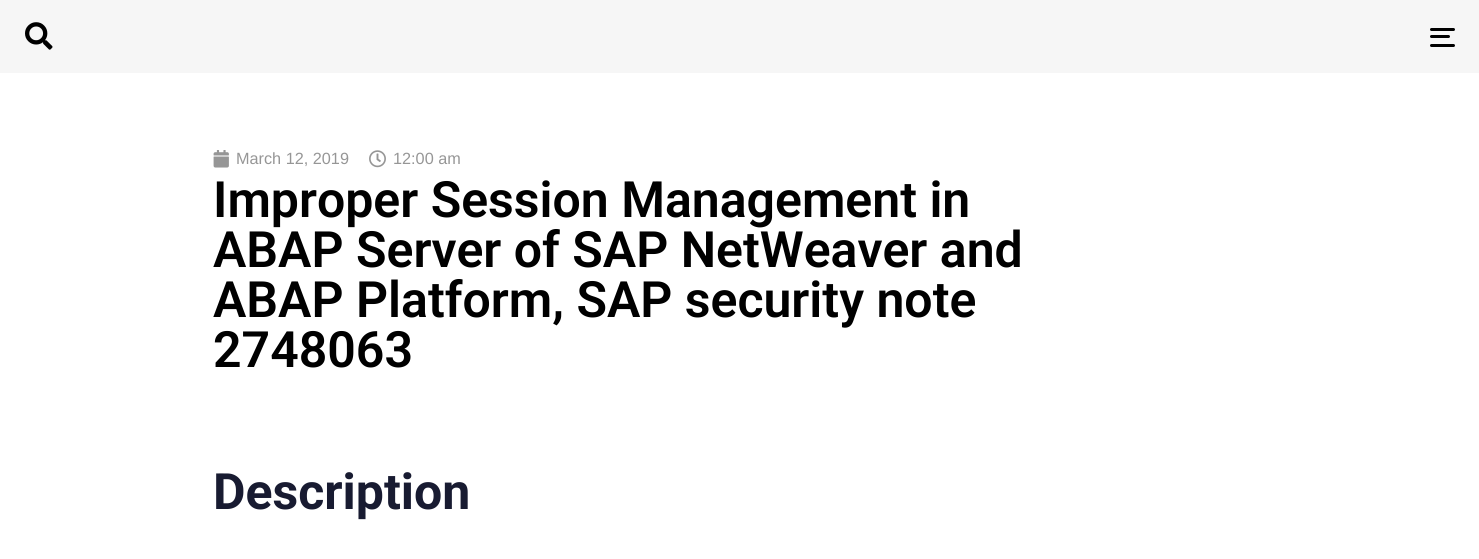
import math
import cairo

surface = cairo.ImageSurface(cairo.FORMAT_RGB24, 1479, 559)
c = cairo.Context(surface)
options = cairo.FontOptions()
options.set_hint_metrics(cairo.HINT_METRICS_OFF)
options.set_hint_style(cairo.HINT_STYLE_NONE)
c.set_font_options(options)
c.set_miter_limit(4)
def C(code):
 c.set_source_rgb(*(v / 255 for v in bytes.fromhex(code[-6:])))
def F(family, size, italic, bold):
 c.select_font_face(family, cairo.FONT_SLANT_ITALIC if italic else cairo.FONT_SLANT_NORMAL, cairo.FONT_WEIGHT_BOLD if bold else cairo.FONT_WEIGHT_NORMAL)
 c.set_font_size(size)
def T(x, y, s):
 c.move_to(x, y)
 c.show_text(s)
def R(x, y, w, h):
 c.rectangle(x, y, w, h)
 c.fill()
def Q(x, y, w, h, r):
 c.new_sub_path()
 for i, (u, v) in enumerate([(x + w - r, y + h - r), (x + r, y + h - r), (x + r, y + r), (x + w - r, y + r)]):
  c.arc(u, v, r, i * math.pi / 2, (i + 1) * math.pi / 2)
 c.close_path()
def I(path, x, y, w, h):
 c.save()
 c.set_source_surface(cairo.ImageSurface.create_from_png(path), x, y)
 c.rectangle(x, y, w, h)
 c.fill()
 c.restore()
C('ffffff')
c.paint()
C('f6f6f6')
R(0,0,1479,73)
I('1.png',25,22,28,28)
C('000000')
Q(1430,28,25,3,1.5)
c.fill()
Q(1430,35,20,3,1.5)
c.fill()
Q(1430,44,25,3,1.5)
c.fill()
I('2.png',213,150,16,18)
F('Liberation Sans',16.25,0,0)
C('969696')
T(236,164,'March 12, 2019')
I('3.png',369,150,17,18)
T(393,164,'12:00 am')
F('Roboto SemiBold',50,0,0)
C('000000')
T(213,217,'Improper Session Management in')
T(213,267,'ABAP Server of SAP NetWeaver and')
T(213,317,'ABAP Platform, SAP security note')
T(213,367,'2748063')
F('Roboto',50,0,1)
C('181b31')
T(213,509,'Description')
surface.write_to_png('o.png')
